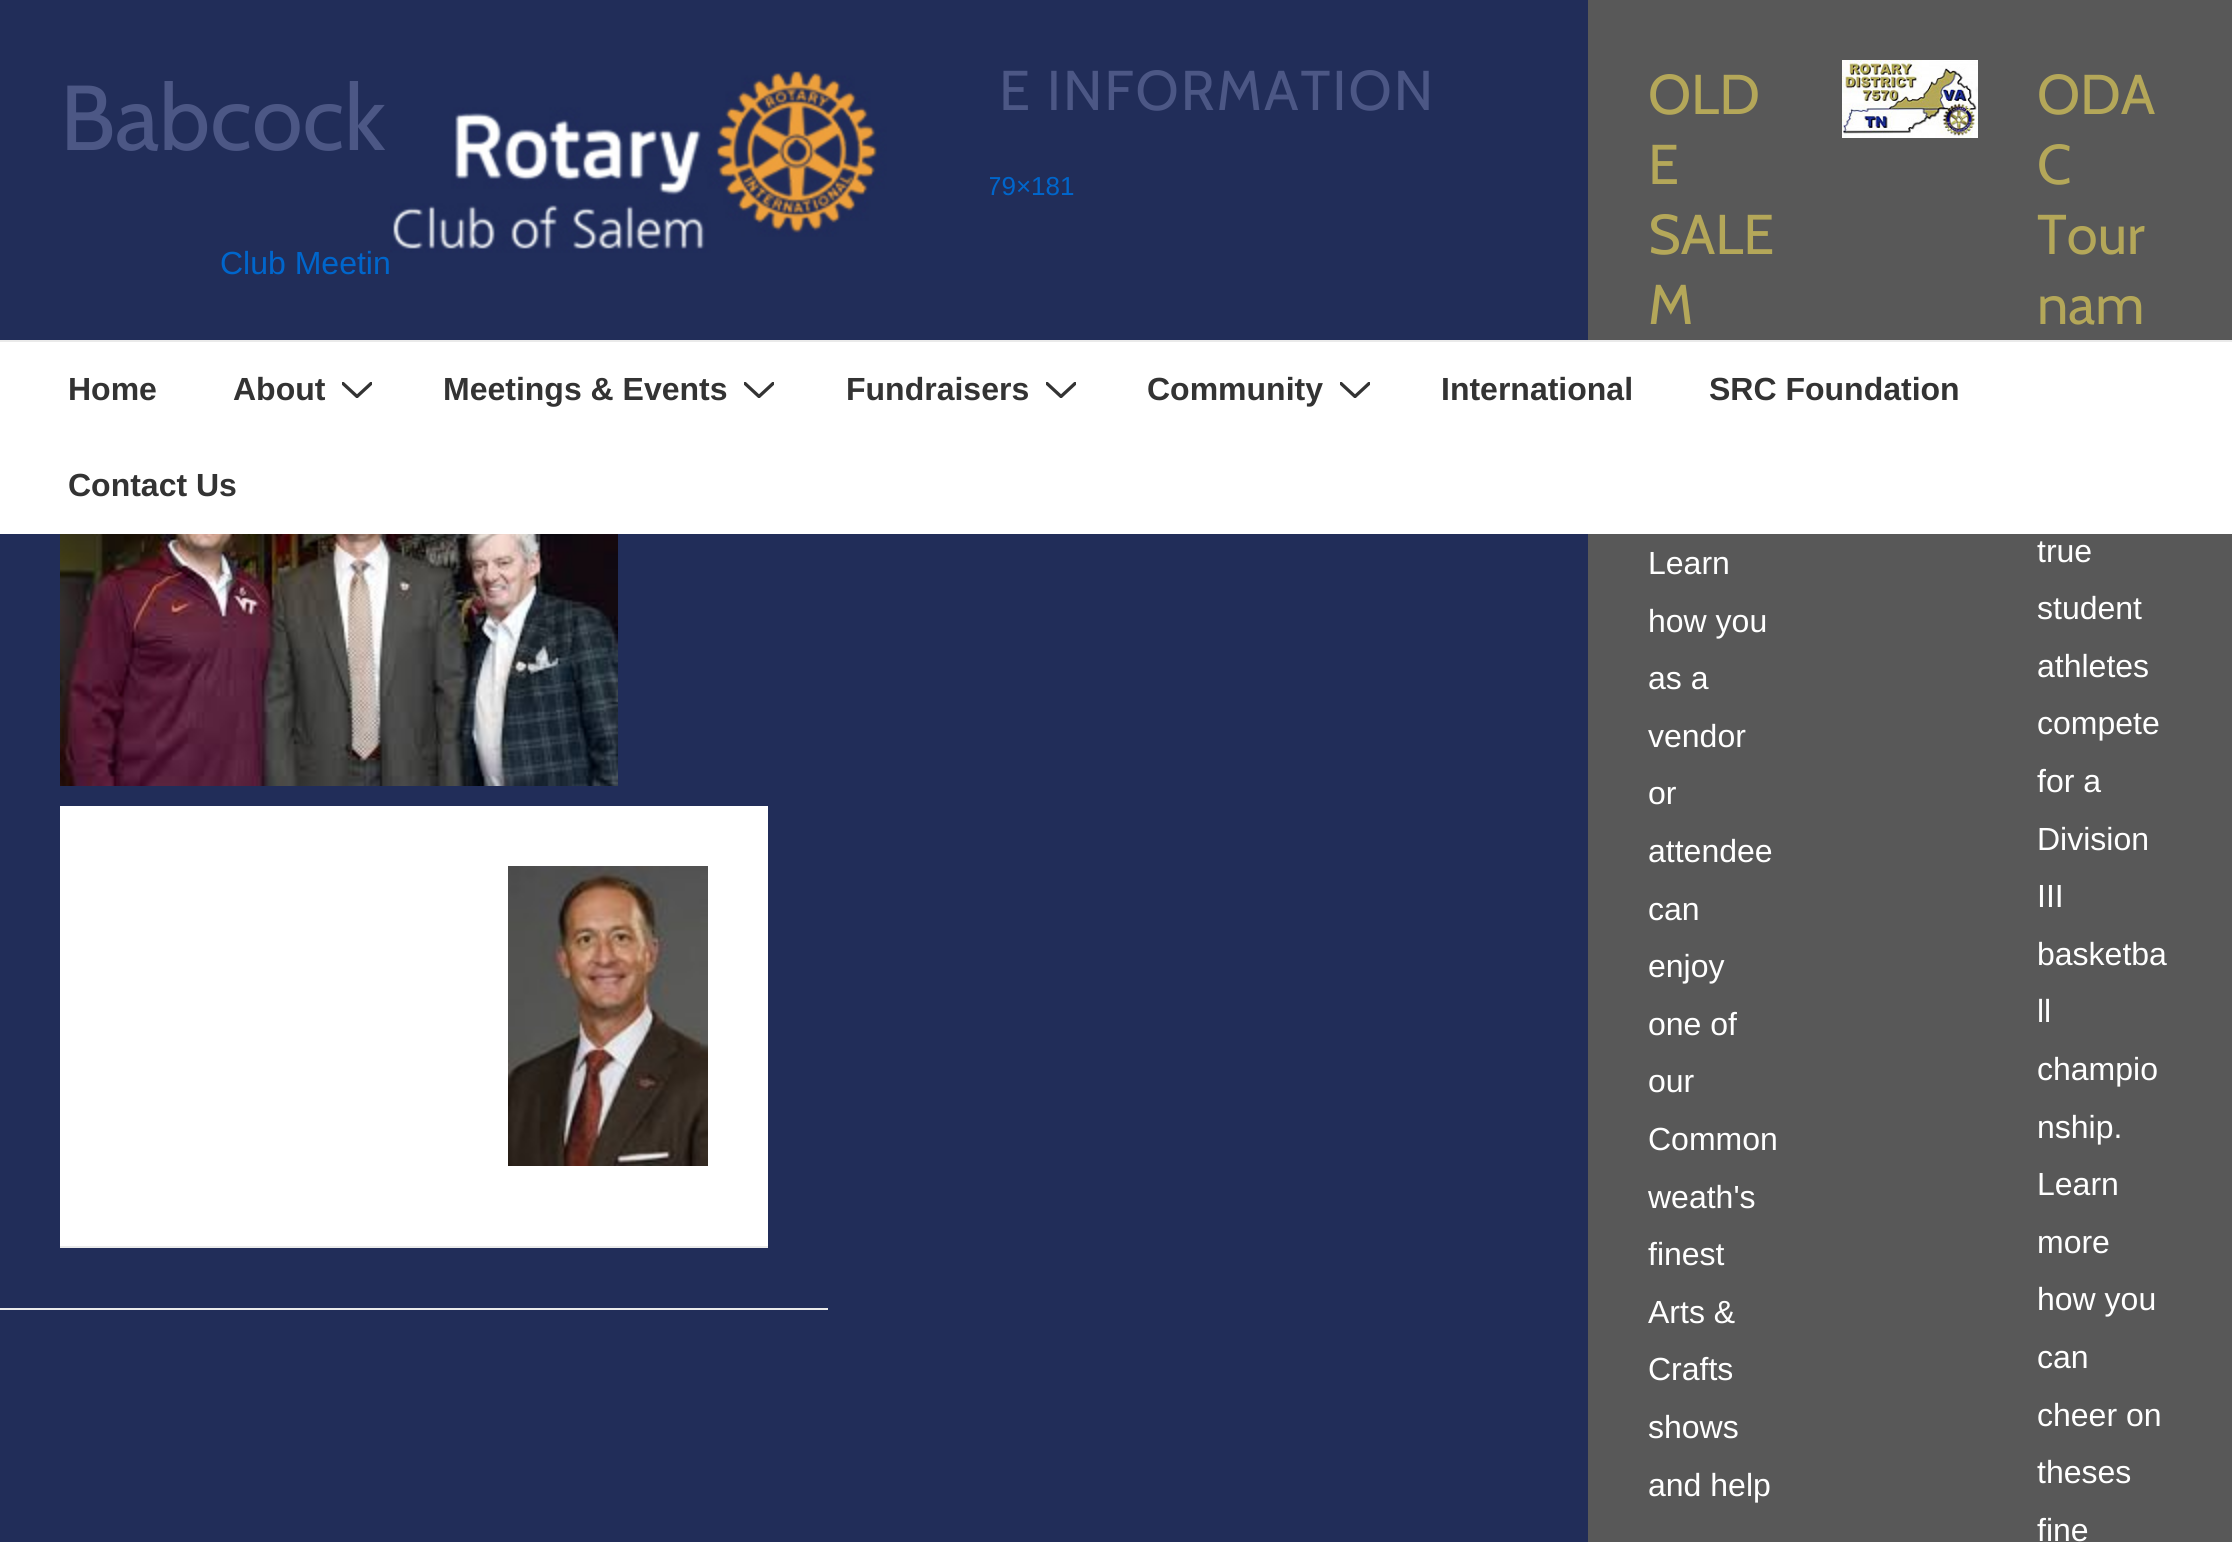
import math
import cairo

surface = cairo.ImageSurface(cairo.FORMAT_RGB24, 2232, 1542)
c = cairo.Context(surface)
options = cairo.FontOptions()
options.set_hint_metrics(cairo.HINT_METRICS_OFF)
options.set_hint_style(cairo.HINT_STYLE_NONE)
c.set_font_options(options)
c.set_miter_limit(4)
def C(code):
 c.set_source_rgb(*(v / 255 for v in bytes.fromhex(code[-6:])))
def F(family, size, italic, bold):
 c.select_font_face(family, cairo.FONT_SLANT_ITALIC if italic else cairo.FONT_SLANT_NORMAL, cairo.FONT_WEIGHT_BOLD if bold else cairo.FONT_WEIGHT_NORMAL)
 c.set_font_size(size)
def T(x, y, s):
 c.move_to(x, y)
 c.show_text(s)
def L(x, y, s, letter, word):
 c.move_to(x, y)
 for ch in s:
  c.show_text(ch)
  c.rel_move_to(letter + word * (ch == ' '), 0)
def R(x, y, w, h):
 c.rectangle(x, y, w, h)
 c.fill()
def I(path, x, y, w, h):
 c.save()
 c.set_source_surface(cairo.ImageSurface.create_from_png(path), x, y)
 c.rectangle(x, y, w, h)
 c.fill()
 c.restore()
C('212d59')
c.paint()
C('eaeaea')
R(0,1308,828,2)
F('Cabin',92,0,0)
C('4c5785')
T(60,150,'Babcock')
F('Liberation Sans',32,0,0)
C('0066cc')
T(220,274,'Club Meetin')
I('1.png',60,534,558,252)
C('ffffff')
R(60,806,708,440)
C('eaeaea')
R(60,1246,708,2)
I('2.png',508,866,200,300)
F('Cabin',56,0,0)
C('4c5785')
L(999,110,'E INFORMATION',2,0)
F('Liberation Sans',26,0,0)
C('0066cc')
T(987,195,'79×181')
C('585858')
R(1588,0,644,1542)
F('Cabin',56,0,0)
C('b4a759')
T(1648,114,'OLD')
T(1648,184,'E')
T(1648,254,'SALE')
T(1648,324,'M')
F('Liberation Sans',32,0,0)
C('ffffff')
T(1648,574,'Learn')
T(1648,632,'how you')
T(1648,689,'as a')
T(1648,747,'vendor')
T(1648,804,'or')
T(1648,862,'attendee')
T(1648,920,'can')
T(1648,977,'enjoy')
T(1648,1035,'one of')
T(1648,1092,'our')
T(1648,1150,'Common')
T(1648,1208,'weath\'s')
T(1648,1265,'finest')
T(1648,1323,'Arts &')
T(1648,1380,'Crafts')
T(1648,1438,'shows')
T(1648,1496,'and help')
I('3.png',1842,60,136,78)
F('Cabin',56,0,0)
C('b4a759')
T(2037,114,'ODA')
T(2037,184,'C')
T(2037,254,'Tour')
T(2037,324,'nam')
F('Liberation Sans',32,0,0)
C('ffffff')
T(2037,562,'true')
T(2037,619,'student')
T(2037,677,'athletes')
T(2037,734,'compete')
T(2037,792,'for a')
T(2037,850,'Division')
T(2037,907,'III')
T(2037,965,'basketba')
T(2037,1022,'ll')
T(2037,1080,'champio')
T(2037,1138,'nship.')
T(2037,1195,'Learn')
T(2037,1253,'more')
T(2037,1310,'how you')
T(2037,1368,'can')
T(2037,1426,'cheer on')
T(2037,1483,'theses')
T(2037,1541,'fine')
I('4.png',390,70,600,210)
R(0,342,2232,192)
C('eaeaea')
R(0,340,2232,2)
F('Liberation Sans',32,0,1)
C('333333')
T(68,400,'Home')
T(233,400,'About')
c.save()
c.rectangle(342,382,30,16)
c.clip()
c.new_path()
c.move_to(343,383.5)
c.line_to(357,396.5)
c.line_to(371,383.5)
c.set_line_width(3.3)
c.set_line_cap(cairo.LINE_CAP_ROUND)
c.stroke()
c.restore()
T(443,400,'Meetings & Events')
c.save()
c.rectangle(744,382,30,16)
c.clip()
c.new_path()
c.move_to(745,383.5)
c.line_to(759,396.5)
c.line_to(773,383.5)
c.set_line_width(3.3)
c.set_line_cap(cairo.LINE_CAP_ROUND)
c.stroke()
c.restore()
T(846,400,'Fundraisers')
c.save()
c.rectangle(1046,382,30,16)
c.clip()
c.new_path()
c.move_to(1047,383.5)
c.line_to(1061,396.5)
c.line_to(1075,383.5)
c.set_line_width(3.3)
c.set_line_cap(cairo.LINE_CAP_ROUND)
c.stroke()
c.restore()
T(1147,400,'Community')
c.save()
c.rectangle(1340,382,30,16)
c.clip()
c.new_path()
c.move_to(1341,383.5)
c.line_to(1355,396.5)
c.line_to(1369,383.5)
c.set_line_width(3.3)
c.set_line_cap(cairo.LINE_CAP_ROUND)
c.stroke()
c.restore()
T(1441,400,'International')
T(1709,400,'SRC Foundation')
T(68,496,'Contact Us')
surface.write_to_png('o.png')
